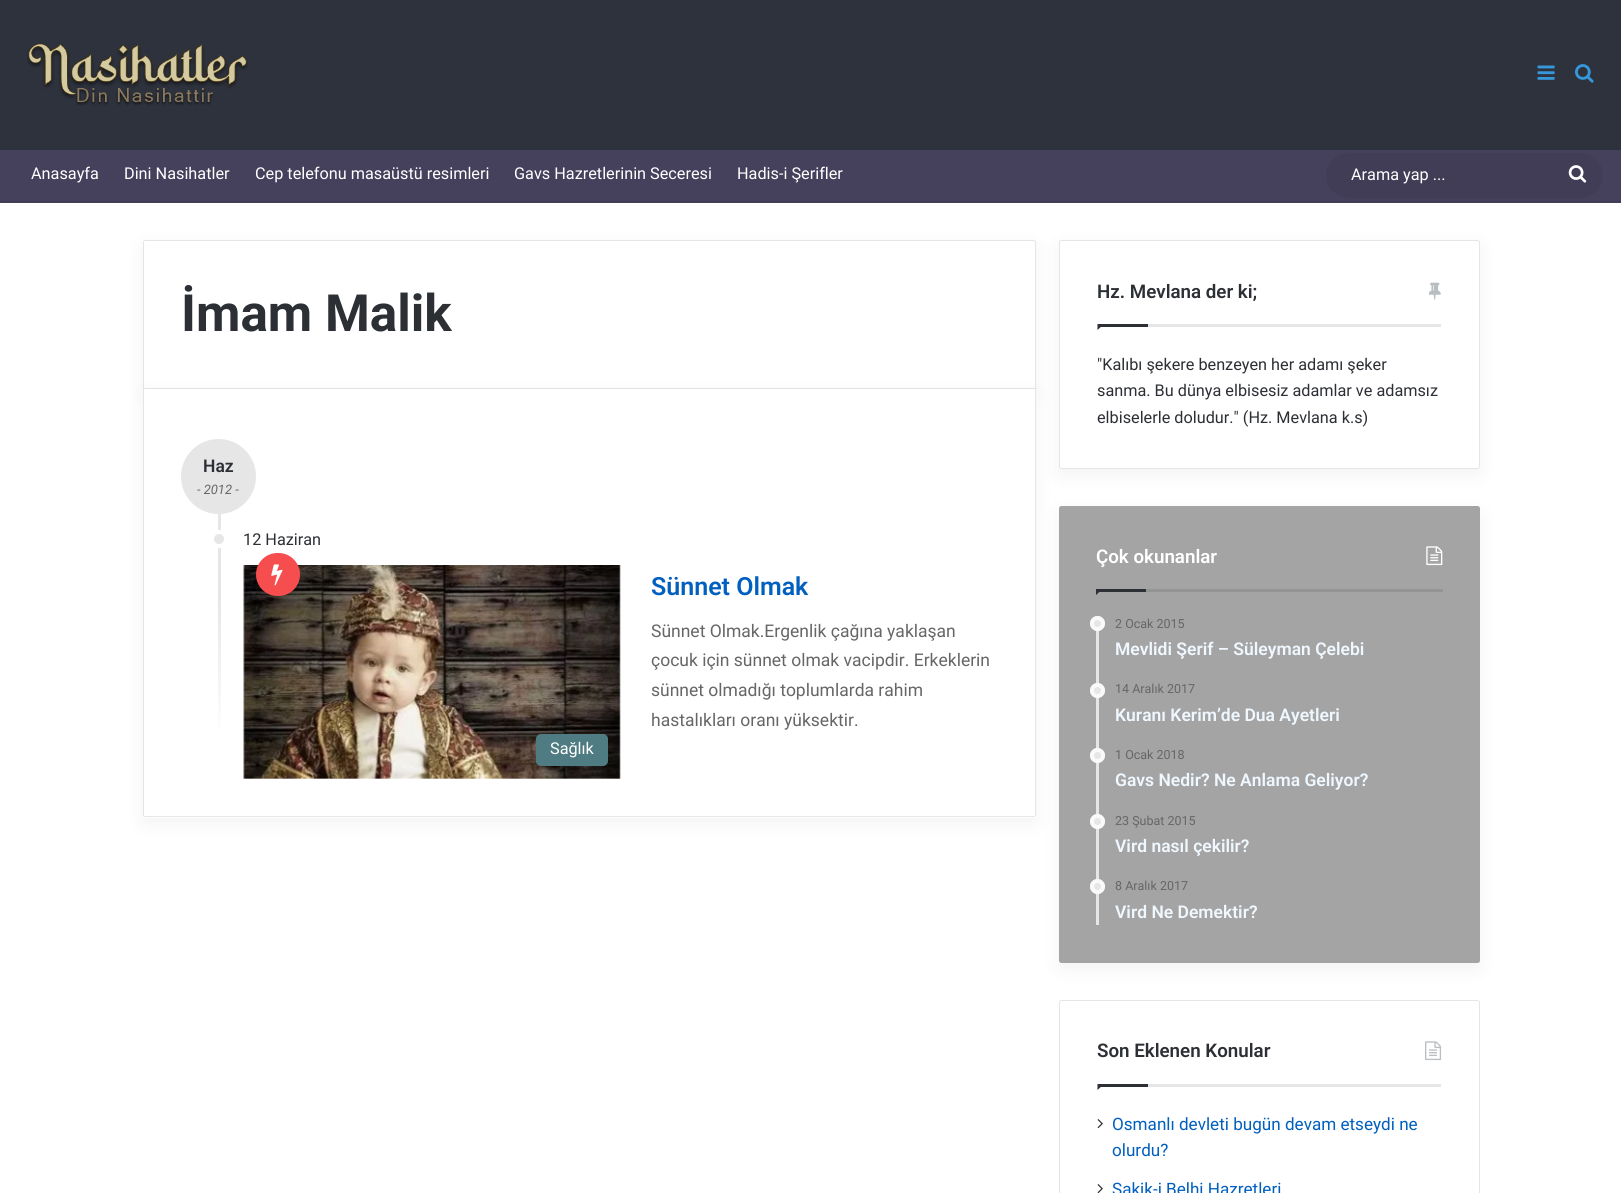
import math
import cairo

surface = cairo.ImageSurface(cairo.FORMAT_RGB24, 1621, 1193)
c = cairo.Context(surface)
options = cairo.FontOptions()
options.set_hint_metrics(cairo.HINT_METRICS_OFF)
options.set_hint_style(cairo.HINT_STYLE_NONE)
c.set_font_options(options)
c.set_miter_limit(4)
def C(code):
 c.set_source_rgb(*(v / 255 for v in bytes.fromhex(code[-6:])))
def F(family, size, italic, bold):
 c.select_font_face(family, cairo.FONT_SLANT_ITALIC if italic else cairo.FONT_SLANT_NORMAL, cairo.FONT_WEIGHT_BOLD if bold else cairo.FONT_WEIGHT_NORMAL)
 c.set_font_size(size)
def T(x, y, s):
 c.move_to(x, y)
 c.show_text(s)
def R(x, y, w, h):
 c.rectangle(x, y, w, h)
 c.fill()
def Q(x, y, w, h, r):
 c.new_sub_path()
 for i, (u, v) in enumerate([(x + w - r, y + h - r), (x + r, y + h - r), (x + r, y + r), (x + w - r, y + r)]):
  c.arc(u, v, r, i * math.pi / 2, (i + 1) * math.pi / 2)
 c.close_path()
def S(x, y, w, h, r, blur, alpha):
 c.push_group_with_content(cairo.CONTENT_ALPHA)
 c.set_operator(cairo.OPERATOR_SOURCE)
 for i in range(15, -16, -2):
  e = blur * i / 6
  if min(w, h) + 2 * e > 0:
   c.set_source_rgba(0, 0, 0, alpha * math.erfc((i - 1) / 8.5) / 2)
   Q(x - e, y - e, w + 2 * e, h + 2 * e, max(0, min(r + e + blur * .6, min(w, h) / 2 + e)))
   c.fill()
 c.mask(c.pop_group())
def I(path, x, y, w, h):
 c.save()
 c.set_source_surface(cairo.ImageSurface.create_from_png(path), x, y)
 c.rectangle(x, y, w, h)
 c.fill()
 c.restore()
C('ffffff')
c.paint()
C('2e323c')
R(0,0,1621,150)
I('1.png',27,43,221,63)
I('2.png',1537,65,18,15)
I('3.png',1575,64,19,19)
C('45405c')
R(0,150,1621,53)
C('3e3a53')
R(0,201,1621,1)
F('Roboto',16.25,0,0)
C('ffffff')
T(31,179,'Anasayfa')
T(124,179,'Dini Nasihatler')
T(255,179,'Cep telefonu masaüstü resimleri')
T(514,179,'Gavs Hazretlerinin Seceresi')
T(737,179,'Hadis-i Şerifler')
C('423d57')
Q(1326,153,277,45,22.5)
c.fill()
C('ffffff')
T(1351,180,'Arama yap ...')
I('4.png',1568,165,19,18)
C('000000')
S(143,246,893,149,2.5,9.5,.05)
C('ffffff')
c.new_path()
c.move_to(145.5,240.5)
c.line_to(1033.5,240.5)
c.curve_to(1034.5,240.5,1035.5,241.5,1035.5,242.5)
c.line_to(1035.5,388.5)
c.line_to(143.5,388.5)
c.line_to(143.5,242.5)
c.curve_to(143.5,241.5,144.5,240.5,145.5,240.5)
c.close_path()
c.fill_preserve()
C('e5e5e5')
c.set_line_width(1)
c.stroke()
F('Roboto',51.25,0,1)
C('2c2f34')
T(181,331,'İmam Malik')
C('000000')
S(143,395,893,429,2.5,9.5,.05)
C('ffffff')
c.new_path()
c.move_to(143,389)
c.line_to(1036,389)
c.line_to(1036,815.5)
c.curve_to(1036,817,1035,818,1033.5,818)
c.line_to(145.5,818)
c.curve_to(144,818,143,817,143,815.5)
c.close_path()
c.fill()
C('e6e6e6')
R(1035,389,1,427)
R(144,816,891,1)
R(143,389,1,427)
R(218,439,3,152)
c.arc(218.5,476.5,37.5,0,2 * math.pi)
c.fill()
F('Roboto SemiBold',17.5,0,0)
C('2c2f34')
T(203,472,'Haz')
F('Roboto',13,1,0)
C('666666')
T(197,494,'- 2012 -')
C('e6e6e6')
c.new_path()
c.arc(219,539,7,0,2 * math.pi)
c.fill_preserve()
C('ffffff')
c.set_line_width(4)
c.stroke()
F('Roboto',16.25,0,0)
C('2c2f34')
T(243,545,'12 Haziran')
F('Roboto SemiBold',25,0,0)
C('005fbf')
T(651,595,'Sünnet Olmak')
F('Roboto',17.5,0,0)
C('666666')
T(651,637,'Sünnet Olmak.Ergenlik çağına yaklaşan')
T(651,666,'çocuk için sünnet olmak vacipdir. Erkeklerin')
T(651,696,'sünnet olmadığı toplumlarda rahim')
T(651,726,'hastalıkları oranı yüksektir.')
I('6.png',243,565,378,214)
C('f64e4e')
Q(256,553,44,43,21.5)
c.fill()
I('5.png',271,564,12,22)
C('4f7b82')
Q(536,734,72,32,5)
c.fill()
F('Roboto',16.25,0,0)
C('ffffff')
T(550,754,'Sağlık')
gradient = cairo.LinearGradient(219,591,219,779)
gradient.add_color_stop_rgba(0,0.898,0.898,0.898,1)
gradient.add_color_stop_rgba(.8,1,1,1,1)
c.set_source(gradient)
R(218,591,3,136)
C('000000')
S(1059,246,421,229,2.5,9.5,.05)
C('ffffff')
Q(1059.5,240.5,420,228,2)
c.fill_preserve()
C('e5e5e5')
c.set_line_width(1)
c.stroke()
C('e6e6e6')
R(1148,324,293,3)
F('Roboto SemiBold',18.75,0,0)
C('2c2f34')
T(1097,298,'Hz. Mevlana der ki;')
I('7.png',1428,282,13,18)
c.new_path()
c.move_to(1097.5,324)
c.line_to(1104,324)
c.line_to(1097.5,330)
c.close_path()
c.fill()
R(1098,324,50,3)
F('Roboto',16.25,0,0)
T(1097,370,'"Kalıbı şekere benzeyen her adamı şeker')
T(1097,396,'sanma. Bu dünya elbisesiz adamlar ve adamsız')
T(1097,423,'elbiselerle doludur." (Hz. Mevlana k.s)')
C('000000')
S(1059,513,421,456,2.5,9.5,.05)
C('a4a4a4')
Q(1059,506,421,457,2.5)
c.fill()
C('949494')
R(1146,589,297,3)
F('Roboto SemiBold',18.75,0,0)
C('ffffff')
T(1096,563,'Çok okunanlar')
I('8.png',1426,546,17,20)
C('2c2f34')
c.new_path()
c.move_to(1096,589)
c.line_to(1102.5,589)
c.line_to(1096,595)
c.close_path()
c.fill()
R(1096,589,50,3)
C('e6e6e6')
R(1096,616,3,309)
c.arc(1097.5,623.5,7.5,0,2 * math.pi)
c.fill()
c.arc(1097.5,623.5,5.5,0,2 * math.pi)
c.set_source_rgba(1,1,1,0.8)
c.set_line_width(4)
c.stroke()
F('Roboto',12.5,0,0)
C('666666')
T(1115,628,'2 Ocak 2015')
F('Roboto SemiBold',17.5,0,0)
C('f0f8ff')
T(1115,655,'Mevlidi Şerif – Süleyman Çelebi')
C('e6e6e6')
c.new_path()
c.arc(1097.5,690.5,7.5,0,2 * math.pi)
c.fill()
c.arc(1097.5,690.5,5.5,0,2 * math.pi)
c.set_source_rgba(1,1,1,0.8)
c.stroke()
F('Roboto',12.5,0,0)
C('666666')
T(1115,693,'14 Aralık 2017')
F('Roboto SemiBold',17.5,0,0)
C('f0f8ff')
T(1115,721,'Kuranı Kerim’de Dua Ayetleri')
C('e6e6e6')
c.new_path()
c.arc(1097.5,755.5,7.5,0,2 * math.pi)
c.fill()
c.arc(1097.5,755.5,5.5,0,2 * math.pi)
c.set_source_rgba(1,1,1,0.8)
c.stroke()
F('Roboto',12.5,0,0)
C('666666')
T(1115,759,'1 Ocak 2018')
F('Roboto SemiBold',17.5,0,0)
C('f0f8ff')
T(1115,786,'Gavs Nedir? Ne Anlama Geliyor?')
C('e6e6e6')
c.new_path()
c.arc(1097.5,821.5,7.5,0,2 * math.pi)
c.fill()
c.arc(1097.5,821.5,5.5,0,2 * math.pi)
c.set_source_rgba(1,1,1,0.8)
c.stroke()
F('Roboto',12.5,0,0)
C('666666')
T(1115,825,'23 Şubat 2015')
F('Roboto SemiBold',17.5,0,0)
C('f0f8ff')
T(1115,852,'Vird nasıl çekilir?')
C('e6e6e6')
c.new_path()
c.arc(1097.5,886.5,7.5,0,2 * math.pi)
c.fill()
c.arc(1097.5,886.5,5.5,0,2 * math.pi)
c.set_source_rgba(1,1,1,0.8)
c.stroke()
F('Roboto',12.5,0,0)
C('666666')
T(1115,890,'8 Aralık 2017')
F('Roboto SemiBold',17.5,0,0)
C('f0f8ff')
T(1115,918,'Vird Ne Demektir?')
Q(1059.5,1000.5,420,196,2)
C('e5e5e5')
c.set_line_width(1)
c.stroke()
C('e6e6e6')
R(1148,1084,293,3)
F('Roboto SemiBold',18.75,0,0)
C('2c2f34')
T(1097,1057,'Son Eklenen Konular')
I('9.png',1425,1041,17,20)
c.new_path()
c.move_to(1097.5,1084)
c.line_to(1104,1084)
c.line_to(1097.5,1090)
c.close_path()
c.fill()
R(1098,1084,50,3)
I('10.png',1097,1119,6,10)
F('Roboto',17.1,0,0)
C('005fbf')
T(1112,1130,'Osmanlı devleti bugün devam etseydi ne')
T(1112,1156,'olurdu?')
I('11.png',1097,1184,6,9)
T(1112,1195,'Şakik-i Belhi Hazretleri')
surface.write_to_png('o.png')
